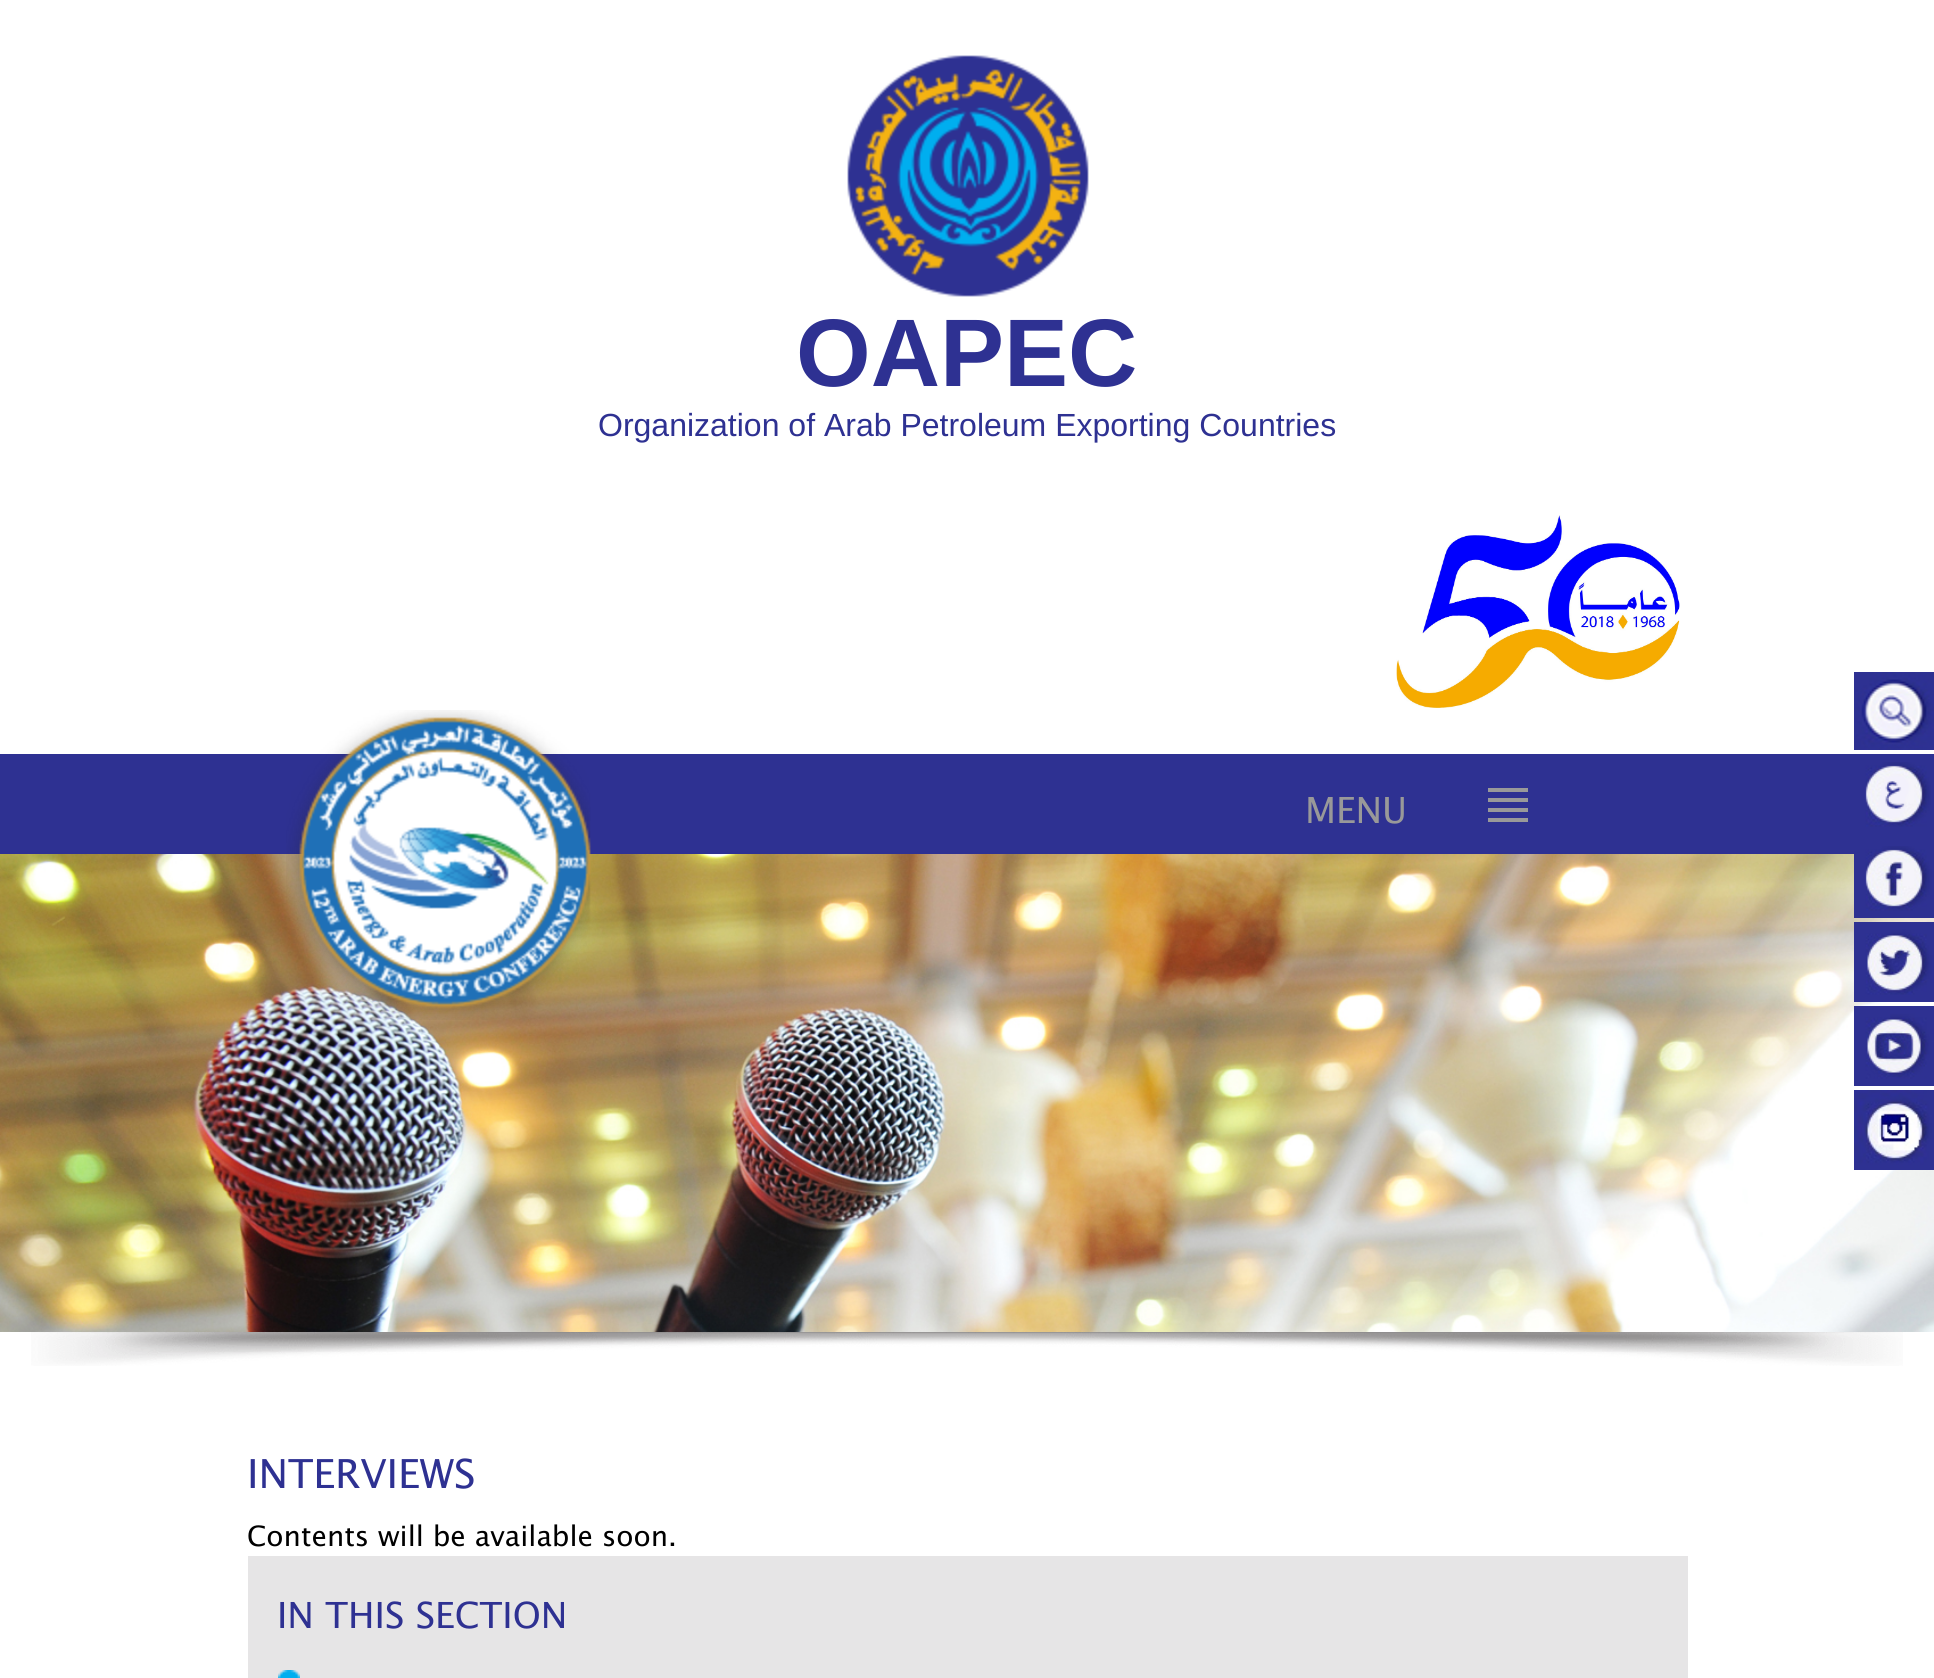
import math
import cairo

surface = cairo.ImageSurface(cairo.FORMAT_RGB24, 1934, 1678)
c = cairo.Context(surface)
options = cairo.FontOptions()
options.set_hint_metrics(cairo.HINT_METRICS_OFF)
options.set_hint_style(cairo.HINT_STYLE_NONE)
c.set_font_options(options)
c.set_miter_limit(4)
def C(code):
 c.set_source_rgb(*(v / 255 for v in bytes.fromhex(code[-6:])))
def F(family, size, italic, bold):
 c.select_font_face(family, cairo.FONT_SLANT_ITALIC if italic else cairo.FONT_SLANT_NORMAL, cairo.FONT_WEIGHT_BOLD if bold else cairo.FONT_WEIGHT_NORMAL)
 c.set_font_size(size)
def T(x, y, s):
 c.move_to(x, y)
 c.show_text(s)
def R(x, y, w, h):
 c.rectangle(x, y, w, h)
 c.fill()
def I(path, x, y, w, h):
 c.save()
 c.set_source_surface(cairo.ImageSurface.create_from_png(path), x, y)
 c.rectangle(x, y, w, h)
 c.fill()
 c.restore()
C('ffffff')
c.paint()
I('1.png',847,55,242,242)
F('Liberation Sans',96,0,1)
C('2e3192')
T(796,386,'OAPEC')
F('Liberation Sans',32,0,0)
T(598,436,'Organization of Arab Petroleum Exporting Countries')
I('2.png',1396,515,284,193)
R(0,754,1934,100)
I('10.png',0,854,1934,478)
I('3.png',286,710,305,310)
F('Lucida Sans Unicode',36,0,0)
C('999999')
T(1305,823,'MENU')
R(1488,788,40,4)
R(1488,798,40,4)
R(1488,808,40,4)
R(1488,818,40,4)
I('4.png',1854,672,80,78)
I('5.png',1865,762,66,65)
I('6.png',1854,846,80,72)
I('7.png',1854,922,80,80)
I('8.png',1854,1006,80,80)
I('9.png',1854,1090,80,80)
I('11.png',31,1332,1872,34)
F('Lucida Sans Unicode',40,0,0)
C('2e3192')
T(247,1488,'INTERVIEWS')
F('Lucida Sans Unicode',28,0,0)
C('000000')
T(247,1546,'Contents will be available soon.')
C('e6e5e6')
R(248,1556,1440,122)
F('Lucida Sans Unicode',36,0,0)
C('2e3192')
T(277,1628,'IN THIS SECTION')
I('12.png',278,1670,22,8)
surface.write_to_png('o.png')
